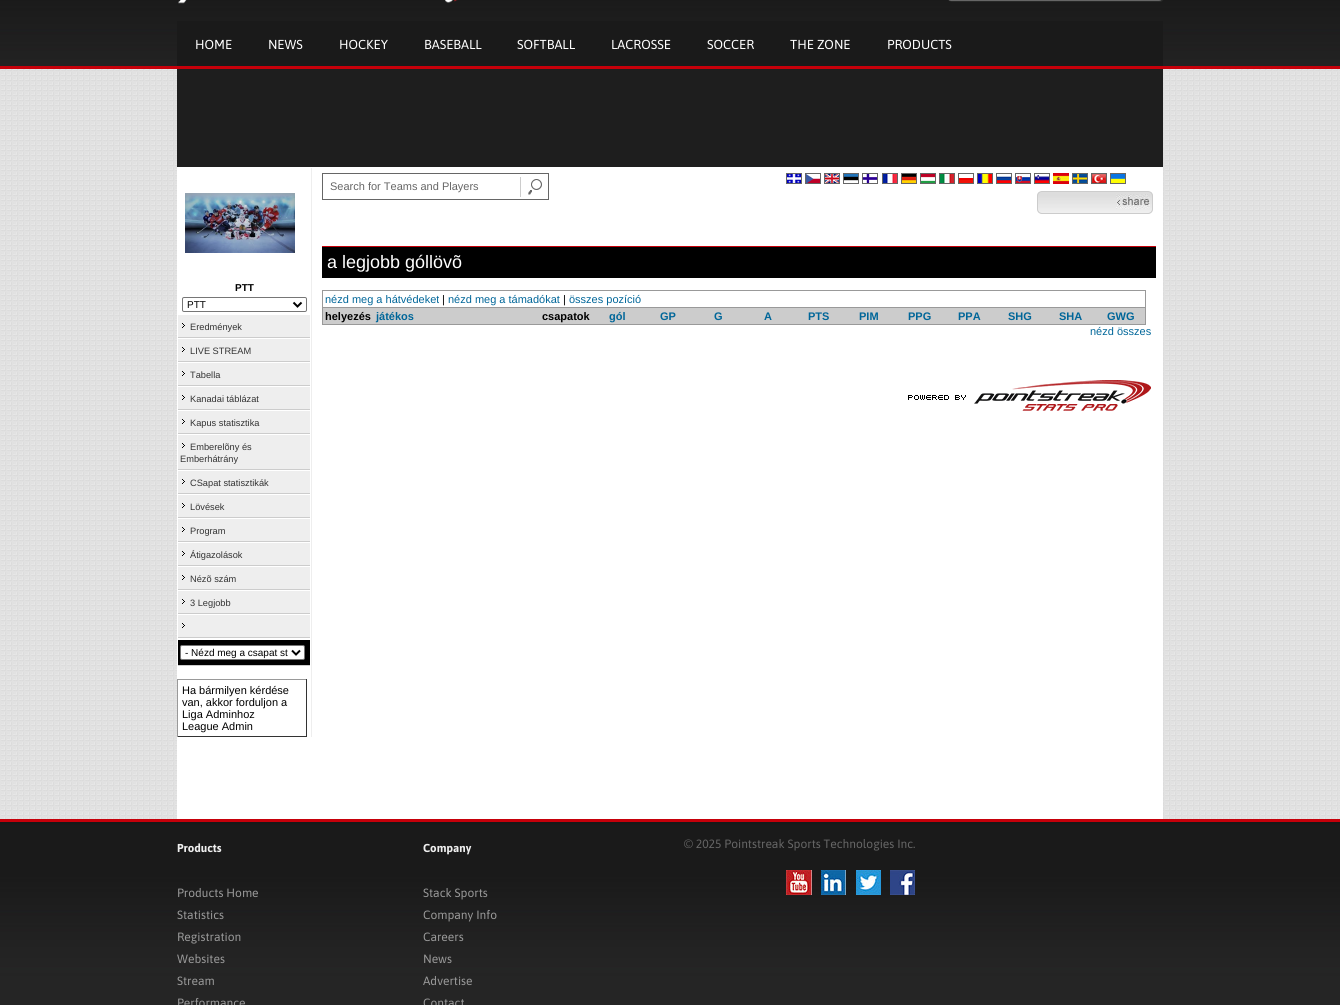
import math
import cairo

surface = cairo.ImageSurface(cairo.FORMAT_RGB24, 1340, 1005)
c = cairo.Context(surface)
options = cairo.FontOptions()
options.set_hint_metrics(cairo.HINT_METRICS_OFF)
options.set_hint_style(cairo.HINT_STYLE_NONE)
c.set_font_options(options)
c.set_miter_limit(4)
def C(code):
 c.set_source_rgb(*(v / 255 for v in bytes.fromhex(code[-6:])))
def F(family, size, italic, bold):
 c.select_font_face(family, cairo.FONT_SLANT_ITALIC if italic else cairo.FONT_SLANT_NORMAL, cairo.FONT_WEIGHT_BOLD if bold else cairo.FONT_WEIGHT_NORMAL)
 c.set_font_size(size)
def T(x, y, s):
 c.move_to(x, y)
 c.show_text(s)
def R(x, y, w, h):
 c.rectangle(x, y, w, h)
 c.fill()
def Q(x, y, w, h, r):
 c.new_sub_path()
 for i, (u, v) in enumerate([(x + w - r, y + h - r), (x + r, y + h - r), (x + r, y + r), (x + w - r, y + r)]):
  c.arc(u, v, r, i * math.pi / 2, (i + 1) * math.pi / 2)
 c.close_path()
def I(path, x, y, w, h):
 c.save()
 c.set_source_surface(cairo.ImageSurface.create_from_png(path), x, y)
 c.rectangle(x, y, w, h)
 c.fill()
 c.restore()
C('ffffff')
c.paint()
I('1.png',0,69,1340,750)
I('2.png',0,0,1340,66)
C('c6000a')
R(0,66,1340,3)
I('3.png',178,0,280,4)
C('272827')
c.new_path()
c.move_to(949,0)
c.curve_to(949,1,951,2,952,2)
c.line_to(1160,2)
c.curve_to(1162,2,1164,0,1164,-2)
c.line_to(1164,-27)
c.curve_to(1164,-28,1163,-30,1162,-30)
c.line_to(1163,-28)
c.line_to(1163,-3)
c.curve_to(1163,-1,1161,1,1159,1)
c.line_to(951,1)
c.close_path()
c.fill()
Q(947.5,-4.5,215,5,3.5)
C('666666')
c.set_line_width(1)
c.stroke()
C('1a1a1a')
R(177,21,986,45)
F('Asap',13,0,0)
C('ffffff')
T(195,49,'HOME')
T(268,49,'NEWS')
T(339,49,'HOCKEY')
T(424,49,'BASEBALL')
T(517,49,'SOFTBALL')
T(611,49,'LACROSSE')
T(707,49,'SOCCER')
T(790,49,'THE ZONE')
T(887,49,'PRODUCTS')
C('1e1e1e')
R(177,69,986,98)
C('ffffff')
R(177,167,986,652)
I('4.png',786,173,16,11)
I('5.png',805,173,16,11)
I('6.png',824,173,16,11)
I('7.png',843,173,16,11)
I('8.png',862,173,16,11)
I('9.png',882,173,16,11)
I('10.png',901,173,16,11)
I('11.png',920,173,16,11)
I('12.png',939,173,16,11)
I('13.png',958,173,16,11)
I('14.png',977,173,16,11)
I('15.png',996,173,16,11)
I('16.png',1015,173,16,11)
I('17.png',1034,173,16,11)
I('18.png',1053,173,16,11)
I('19.png',1072,173,16,11)
I('20.png',1091,173,16,11)
I('21.png',1110,173,16,11)
c.rectangle(322.5,173.5,198,26)
C('666666')
c.stroke()
F('Liberation Sans',11,0,0)
T(330,190,'Search for Teams and Players')
I('22.png',520,173,29,27)
I('23.png',1037,192,116,22)
Q(1037.5,191.5,115,22,4.5)
C('cccccc')
c.stroke()
I('24.png',1116,194,34,15)
C('000000')
R(322,247,834,31)
C('c6000a')
R(322,246,834,1)
F('Liberation Sans',18,0,0)
C('ffffff')
T(327,268,'a legjobb góllövõ')
C('999999')
R(322,290,824,35)
C('ffffff')
R(323,291,822,16)
F('Liberation Sans',11,0,0)
C('006699')
T(325,303,'nézd meg a hátvédeket')
C('000000')
T(442,303,'|')
C('006699')
T(448,303,'nézd meg a támadókat')
C('000000')
T(563,303,'|')
C('006699')
T(569,303,'összes pozíció')
C('cccccc')
R(323,308,822,16)
F('Liberation Sans',11,0,1)
C('000000')
T(325,320,'helyezés')
C('006699')
T(376,320,'játékos')
C('000000')
T(542,320,'csapatok')
C('006699')
T(609,320,'gól')
T(660,320,'GP')
T(714,320,'G')
T(764,320,'A')
T(808,320,'PTS')
T(859,320,'PIM')
T(908,320,'PPG')
T(958,320,'PPA')
T(1008,320,'SHG')
T(1059,320,'SHA')
T(1107,320,'GWG')
F('Liberation Sans',11,0,0)
T(1090,335,'nézd összes')
I('25.png',908,380,243,31)
C('eeeeee')
R(311,168,1,569)
I('26.png',185,193,110,60)
F('Liberation Sans',10,0,1)
C('000000')
T(235,291,'PTT')
Q(182.5,297.5,124,14,1.5)
C('767676')
c.stroke()
c.new_path()
c.move_to(293.5,302.5)
c.line_to(297.5,306.5)
c.line_to(301.5,302.5)
C('000000')
c.set_line_width(2)
c.stroke()
F('Liberation Sans',10,0,0)
T(187,308,'PTT')
C('eeeeee')
R(178,315,132,22)
C('cccccc')
R(178,337,132,1)
I('27.png',182,323,3,5)
F('Liberation Sans',9.25,0,0)
C('333333')
T(190,330,'Eredmények')
C('eeeeee')
R(178,339,132,22)
C('cccccc')
R(178,361,132,1)
I('27.png',182,347,3,5)
C('333333')
T(190,354,'LIVE STREAM')
C('eeeeee')
R(178,363,132,22)
C('cccccc')
R(178,385,132,1)
I('27.png',182,371,3,5)
C('333333')
T(190,378,'Tabella')
C('eeeeee')
R(178,387,132,22)
C('cccccc')
R(178,409,132,1)
I('27.png',182,395,3,5)
C('333333')
T(190,402,'Kanadai táblázat')
C('eeeeee')
R(178,411,132,22)
C('cccccc')
R(178,433,132,1)
I('27.png',182,419,3,5)
C('333333')
T(190,426,'Kapus statisztika')
C('eeeeee')
R(178,435,132,34)
C('cccccc')
R(178,469,132,1)
I('27.png',182,443,3,5)
C('333333')
T(190,450,'Emberelõny és')
T(180,462,'Emberhátrány')
C('eeeeee')
R(178,471,132,22)
C('cccccc')
R(178,493,132,1)
I('27.png',182,479,3,5)
C('333333')
T(190,486,'CSapat statisztikák')
C('eeeeee')
R(178,495,132,22)
C('cccccc')
R(178,517,132,1)
I('27.png',182,503,3,5)
C('333333')
T(190,510,'Lövések')
C('eeeeee')
R(178,519,132,22)
C('cccccc')
R(178,541,132,1)
I('27.png',182,527,3,5)
C('333333')
T(190,534,'Program')
C('eeeeee')
R(178,543,132,22)
C('cccccc')
R(178,565,132,1)
I('27.png',182,551,3,5)
C('333333')
T(190,558,'Átigazolások')
C('eeeeee')
R(178,567,132,22)
C('cccccc')
R(178,589,132,1)
I('27.png',182,575,3,5)
C('333333')
T(190,582,'Nézõ szám')
C('eeeeee')
R(178,591,132,22)
C('cccccc')
R(178,613,132,1)
I('27.png',182,599,3,5)
C('333333')
T(190,606,'3 Legjobb')
C('eeeeee')
R(178,615,132,22)
C('cccccc')
R(178,637,132,1)
I('27.png',182,623,3,5)
C('000000')
R(178,640,132,25)
C('cccccc')
R(178,665,132,1)
C('ffffff')
Q(180.5,645.5,124,14,1.5)
c.fill_preserve()
C('767676')
c.set_line_width(1)
c.stroke()
c.new_path()
c.move_to(292,650.5)
c.line_to(296,654.5)
c.line_to(300,650.5)
C('000000')
c.set_line_width(2)
c.stroke()
F('Liberation Sans',10,0,0)
T(185,656,'- Nézd meg a csapat st')
C('999999')
R(177,679,130,1)
C('333333')
R(306,679,1,58)
R(177,736,130,1)
C('999999')
R(177,679,1,58)
F('Liberation Sans',11,0,0)
C('000000')
T(182,694,'Ha bármilyen kérdése')
T(182,706,'van, akkor forduljon a')
T(182,718,'Liga Adminhoz')
T(182,730,'League Admin')
I('28.png',0,822,1340,183)
C('c6000a')
R(0,819,1340,3)
F('Asap',11.5,0,1)
C('eeeeee')
T(177,852,'Products')
F('Asap',12,0,0)
C('999999')
T(177,897,'Products Home')
T(177,919,'Statistics')
T(177,941,'Registration')
T(177,963,'Websites')
T(177,985,'Stream')
T(177,1007,'Performance')
F('Asap',11.5,0,1)
C('eeeeee')
T(423,852,'Company')
F('Asap',12,0,0)
C('999999')
T(423,897,'Stack Sports')
T(423,919,'Company Info')
T(423,941,'Careers')
T(423,963,'News')
T(423,985,'Advertise')
T(423,1007,'Contact')
C('666666')
T(684,848,'© 2025 Pointstreak Sports Technologies Inc.')
I('29.png',786,870,26,25)
I('30.png',821,870,25,25)
I('31.png',856,870,25,25)
I('32.png',890,870,25,25)
surface.write_to_png('o.png')
